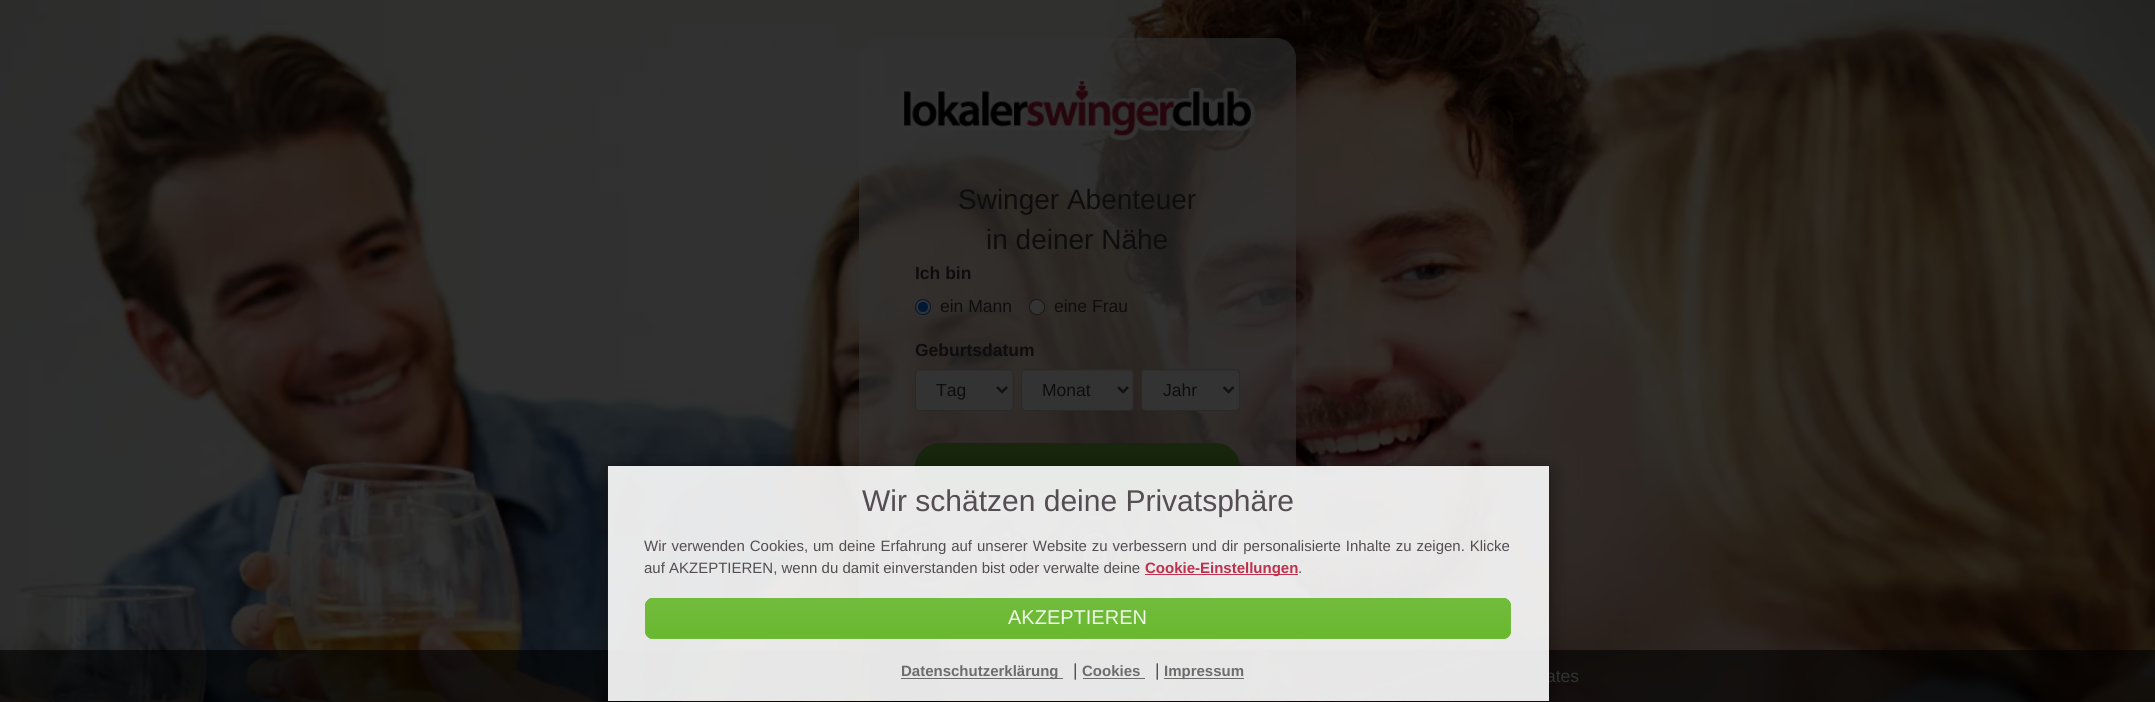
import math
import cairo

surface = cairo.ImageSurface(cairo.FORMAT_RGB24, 2155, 702)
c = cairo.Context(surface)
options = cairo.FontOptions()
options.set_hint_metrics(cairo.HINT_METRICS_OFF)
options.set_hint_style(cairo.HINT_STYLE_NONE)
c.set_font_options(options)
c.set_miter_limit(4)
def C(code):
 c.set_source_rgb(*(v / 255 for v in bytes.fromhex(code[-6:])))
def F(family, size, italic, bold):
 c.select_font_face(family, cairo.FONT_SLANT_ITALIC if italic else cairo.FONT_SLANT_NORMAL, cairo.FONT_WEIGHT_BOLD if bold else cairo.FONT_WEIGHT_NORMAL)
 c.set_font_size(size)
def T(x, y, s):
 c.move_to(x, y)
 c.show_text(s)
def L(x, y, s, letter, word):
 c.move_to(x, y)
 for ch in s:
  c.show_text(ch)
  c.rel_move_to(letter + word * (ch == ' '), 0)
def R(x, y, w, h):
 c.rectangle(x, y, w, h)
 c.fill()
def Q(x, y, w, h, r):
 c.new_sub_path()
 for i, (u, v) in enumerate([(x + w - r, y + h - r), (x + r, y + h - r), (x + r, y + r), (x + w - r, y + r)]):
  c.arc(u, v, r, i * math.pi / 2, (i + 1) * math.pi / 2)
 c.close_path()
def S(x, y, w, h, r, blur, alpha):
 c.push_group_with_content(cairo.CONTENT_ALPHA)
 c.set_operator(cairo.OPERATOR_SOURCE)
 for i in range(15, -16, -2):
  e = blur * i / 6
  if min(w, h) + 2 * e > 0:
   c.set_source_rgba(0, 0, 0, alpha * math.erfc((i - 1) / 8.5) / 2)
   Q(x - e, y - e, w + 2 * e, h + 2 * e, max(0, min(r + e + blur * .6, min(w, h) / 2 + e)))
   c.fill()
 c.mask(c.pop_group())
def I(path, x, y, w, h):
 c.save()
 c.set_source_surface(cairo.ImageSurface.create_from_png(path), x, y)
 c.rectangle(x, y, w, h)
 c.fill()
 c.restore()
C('ffffff')
c.paint()
I('1.png',0,0,2155,702)
c.set_source_rgba(0.2,0.2,0.2,0.6)
Q(859,38,437,577,20)
c.fill()
I('2.png',900,77,356,64)
F('Liberation Sans',28,0,0)
C('0e0c0d')
T(958,209,'Swinger Abenteuer')
T(986,249,'in deiner Nähe')
F('Liberation Sans',17.5,0,1)
T(915,279,'Ich bin')
C('333333')
c.new_path()
c.arc(923,307,7.5,0,2 * math.pi)
c.fill_preserve()
C('001833')
c.set_line_width(1)
c.stroke()
c.arc(923,307,5,0,2 * math.pi)
c.fill()
F('Liberation Sans',17.5,0,0)
C('0e0c0d')
T(940,312,'ein Mann')
C('333333')
c.new_path()
c.arc(1037,307,7.5,0,2 * math.pi)
c.fill_preserve()
C('181818')
c.stroke()
C('0e0c0d')
T(1054,312,'eine Frau')
F('Liberation Sans',17.5,0,1)
T(915,356,'Geburtsdatum')
C('333333')
Q(915,369,99,42,5)
c.fill()
C('2f2f2f')
c.new_path()
c.move_to(920,371)
c.line_to(994,371)
c.curve_to(1015,371,1012,368,1012,386)
c.line_to(1012,409)
c.curve_to(1013,408,1013,407,1013,406)
c.line_to(1013,374)
c.curve_to(1013,372,1011,370,1009,370)
c.line_to(920,370)
c.curve_to(918,370,916,372,916,374)
c.line_to(916,375)
c.curve_to(916,373,918,371,920,371)
c.close_path()
c.fill()
Q(915.5,369.5,98,41,4.5)
C('292929')
c.stroke()
c.new_path()
c.move_to(997,387)
c.line_to(1002,392)
c.line_to(1007,387)
C('111111')
c.set_line_width(2.5)
c.stroke()
F('Liberation Sans',17.5,0,0)
C('0e0c0d')
T(936,396,'Tag')
C('333333')
Q(1021,369,113,42,5)
c.fill()
C('2f2f2f')
c.new_path()
c.move_to(1026,371)
c.line_to(1129,371)
c.curve_to(1133,371,1132,379,1132,380)
c.line_to(1132,409)
c.curve_to(1134,407,1133,403,1133,401)
c.line_to(1133,390)
c.curve_to(1133,367,1137,370,1112,370)
c.line_to(1026,370)
c.line_to(1024,372)
c.close_path()
c.fill()
Q(1021.5,369.5,112,41,4.5)
C('292929')
c.set_line_width(1)
c.stroke()
c.new_path()
c.move_to(1118,387)
c.line_to(1123,392)
c.line_to(1128,387)
C('111111')
c.set_line_width(2.5)
c.stroke()
C('0e0c0d')
T(1042,396,'Monat')
C('333333')
Q(1141,369,99,42,5)
c.fill()
C('2f2f2f')
c.new_path()
c.move_to(1146,371)
c.line_to(1235,371)
c.curve_to(1237,371,1239,373,1239,375)
c.curve_to(1239,374,1239,372,1238,371)
c.line_to(1235,370)
c.line_to(1146,370)
c.line_to(1144,372)
c.close_path()
c.fill()
Q(1141.5,369.5,98,41,4.5)
C('292929')
c.set_line_width(1)
c.stroke()
c.new_path()
c.move_to(1223.5,387)
c.line_to(1228.5,392)
c.line_to(1233.5,387)
C('111111')
c.set_line_width(2.5)
c.stroke()
C('0e0c0d')
T(1163,396,'Jahr')
c.save()
Q(915,443,325,51,25)
c.clip()
gradient = cairo.LinearGradient(1078,444,1078,493)
gradient.add_color_stop_rgba(0,0.09,0.149,0.047,1)
gradient.add_color_stop_rgba(1,0.082,0.145,0.035,1)
c.set_source(gradient)
R(915,444,325,49)
c.restore()
Q(915.5,443.5,324,50,24.5)
C('17260c')
c.set_line_width(1)
c.stroke()
I('3.png',888,517,67,66)
I('4.png',975,516,64,67)
I('5.png',1062,516,67,67)
c.set_source_rgba(0,0,0,0.6)
R(0,650,2155,52)
c.save()
c.set_fill_rule(cairo.FILL_RULE_EVEN_ODD)
c.new_path()
c.move_to(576,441)
c.line_to(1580,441)
c.line_to(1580,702)
c.line_to(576,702)
c.close_path()
c.move_to(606,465)
c.line_to(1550,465)
c.line_to(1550,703)
c.line_to(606,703)
c.close_path()
c.clip()
C('000000')
S(606,471,944,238,0,9.5,.45)
c.restore()
C('333333')
T(1546,682,'ates')
c.set_source_rgba(1,1,1,0.9)
R(608,466,941,235)
c.rectangle(606.5,465.5,943,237)
c.set_source_rgba(0,0,0,0.18)
c.stroke()
F('Liberation Sans',30,0,0)
C('544d51')
T(862,511,'Wir schätzen deine Privatsphäre')
F('Liberation Sans',15,0,0)
L(644,551,'Wir verwenden Cookies, um deine Erfahrung auf unserer Website zu verbessern und dir personalisierte Inhalte zu zeigen. Klicke',0,.75)
T(644,573,'auf AKZEPTIEREN, wenn du damit einverstanden bist oder verwalte deine')
c.set_source_rgba(0.725,0.11,0.227,0.9)
R(1145,574,153,1)
F('Liberation Sans',15,0,1)
C('be304b')
T(1145,573,'Cookie-Einstellungen')
F('Liberation Sans',15,0,0)
C('544d51')
T(1298,573,'.')
c.set_source_rgba(0.443,0.737,0.231,0.9)
Q(645,598,866,41,8)
c.fill()
c.save()
Q(645,598,866,41,8)
c.clip()
gradient = cairo.LinearGradient(1078,560,1078,599)
gradient.add_color_stop_rgba(0,0.443,0.737,0.231,.9)
gradient.add_color_stop_rgba(1,0.404,0.718,0.173,.9)
c.set_source(gradient)
R(645,598,866,1)
gradient = cairo.LinearGradient(1078,599,1078,638)
gradient.add_color_stop_rgba(0,0.443,0.737,0.231,.9)
gradient.add_color_stop_rgba(1,0.404,0.718,0.173,.9)
c.set_source(gradient)
R(645,599,866,39)
gradient = cairo.LinearGradient(1078,637,1078,676)
gradient.add_color_stop_rgba(0,0.443,0.737,0.231,.9)
gradient.add_color_stop_rgba(1,0.404,0.718,0.173,.9)
c.set_source(gradient)
R(645,638,866,1)
c.restore()
Q(645.5,598.5,865,40,7.5)
c.stroke()
F('Liberation Sans',20,0,0)
C('f0f8eb')
T(1008,624,'AKZEPTIEREN')
c.set_source_rgba(0.369,0.369,0.369,0.9)
R(901,678,162,1)
F('Liberation Sans',15,0,1)
C('6c6c6c')
T(901,676,'Datenschutzerklärung')
F('Liberation Sans',17.5,0,0)
C('544d51')
T(1073,676,'|')
F('Liberation Sans',15,0,1)
C('6c6c6c')
T(1082,676,'Cookies')
c.set_source_rgba(0.369,0.369,0.369,0.9)
R(1083,678,62,1)
F('Liberation Sans',17.5,0,0)
C('544d51')
T(1155,676,'|')
c.set_source_rgba(0.369,0.369,0.369,0.9)
R(1164,678,80,1)
F('Liberation Sans',15,0,1)
C('6c6c6c')
T(1164,676,'Impressum')
surface.write_to_png('o.png')
